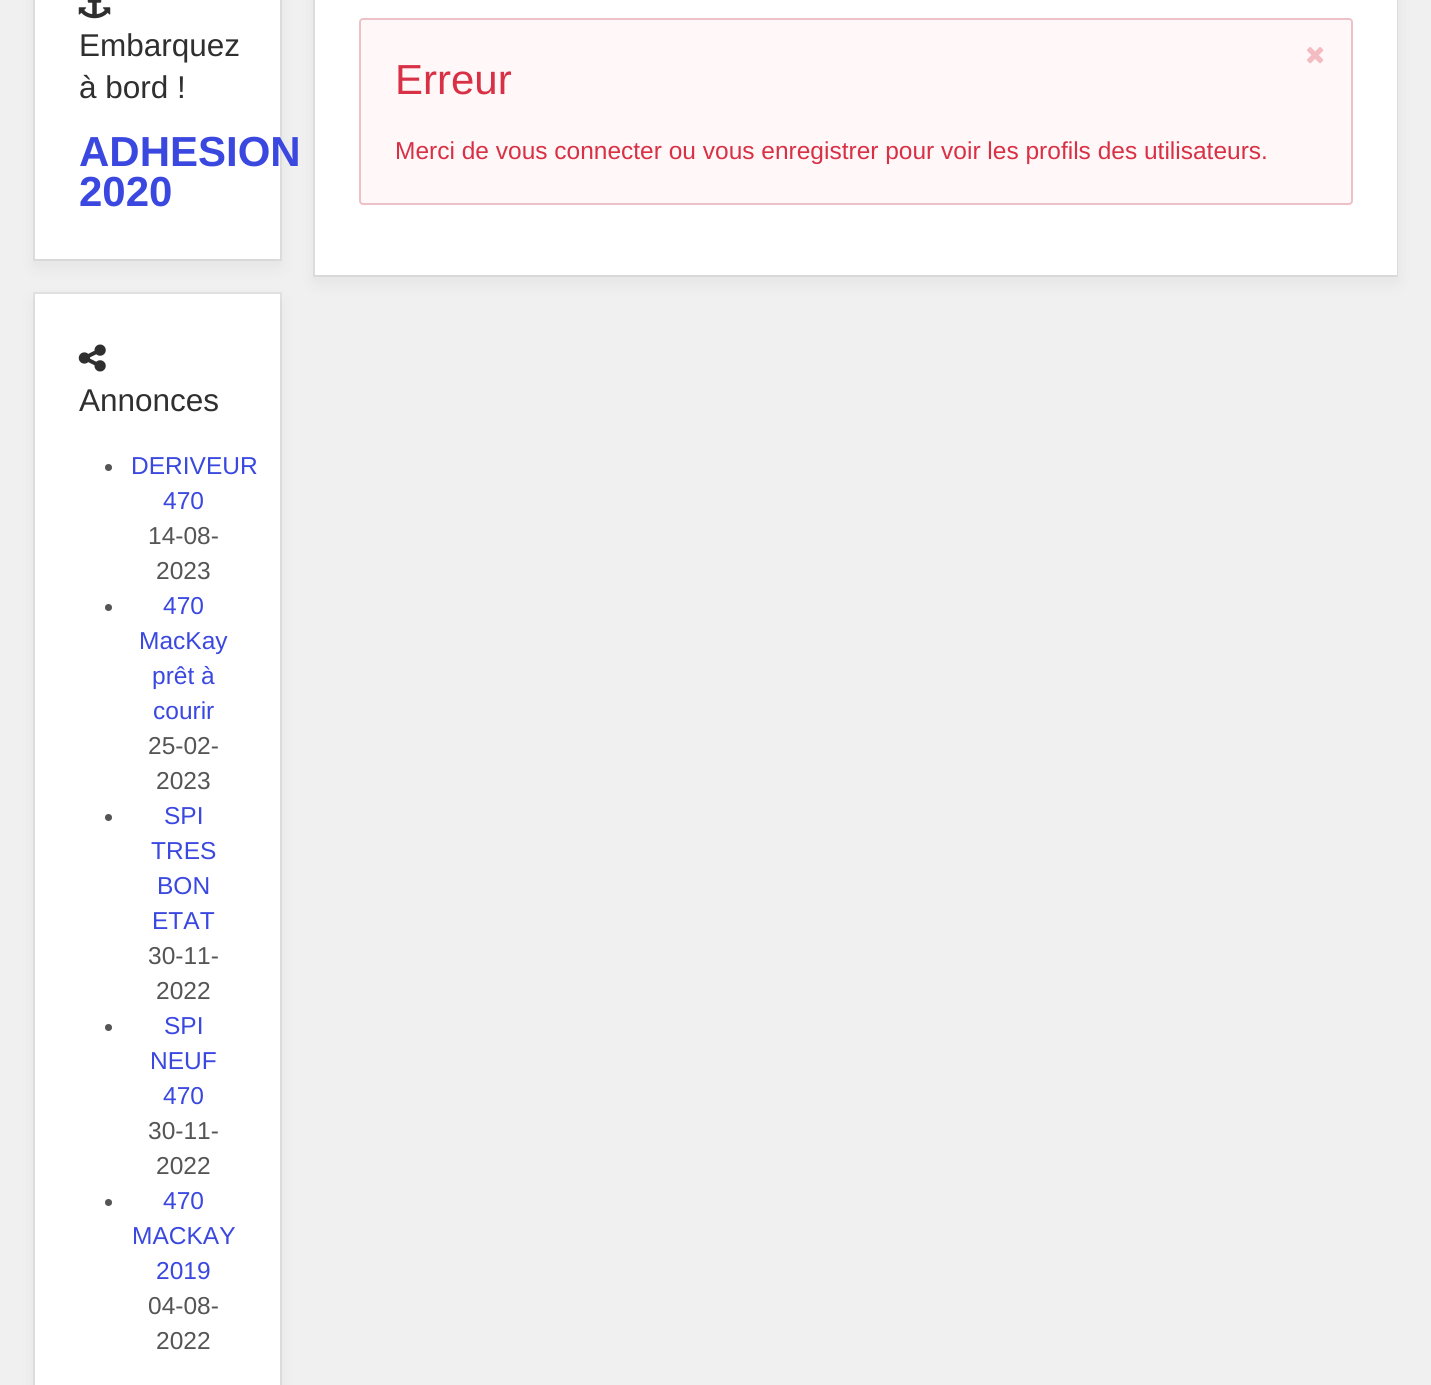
import math
import cairo

surface = cairo.ImageSurface(cairo.FORMAT_RGB24, 1431, 1385)
c = cairo.Context(surface)
options = cairo.FontOptions()
options.set_hint_metrics(cairo.HINT_METRICS_OFF)
options.set_hint_style(cairo.HINT_STYLE_NONE)
c.set_font_options(options)
c.set_miter_limit(4)
def C(code):
 c.set_source_rgb(*(v / 255 for v in bytes.fromhex(code[-6:])))
def F(family, size, italic, bold):
 c.select_font_face(family, cairo.FONT_SLANT_ITALIC if italic else cairo.FONT_SLANT_NORMAL, cairo.FONT_WEIGHT_BOLD if bold else cairo.FONT_WEIGHT_NORMAL)
 c.set_font_size(size)
def T(x, y, s):
 c.move_to(x, y)
 c.show_text(s)
def R(x, y, w, h):
 c.rectangle(x, y, w, h)
 c.fill()
def Q(x, y, w, h, r):
 c.new_sub_path()
 for i, (u, v) in enumerate([(x + w - r, y + h - r), (x + r, y + h - r), (x + r, y + r), (x + w - r, y + r)]):
  c.arc(u, v, r, i * math.pi / 2, (i + 1) * math.pi / 2)
 c.close_path()
def S(x, y, w, h, r, blur, alpha):
 c.push_group_with_content(cairo.CONTENT_ALPHA)
 c.set_operator(cairo.OPERATOR_SOURCE)
 for i in range(15, -16, -2):
  e = blur * i / 6
  if min(w, h) + 2 * e > 0:
   c.set_source_rgba(0, 0, 0, alpha * math.erfc((i - 1) / 8.5) / 2)
   Q(x - e, y - e, w + 2 * e, h + 2 * e, max(0, min(r + e + blur * .6, min(w, h) / 2 + e)))
   c.fill()
 c.mask(c.pop_group())
def I(path, x, y, w, h):
 c.save()
 c.set_source_surface(cairo.ImageSurface.create_from_png(path), x, y)
 c.rectangle(x, y, w, h)
 c.fill()
 c.restore()
C('f0f0f0')
c.paint()
C('000000')
S(35,-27,245,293,0,9,.06)
c.rectangle(34,-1,247,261)
c.set_source_rgba(0,0,0,0.06)
c.stroke()
C('ffffff')
R(35,0,245,259)
I('1.png',78,0,33,19)
F('Liberation Sans',31.5,0,0)
C('2f2f2f')
T(79,56,'Embarquez')
T(79,98,'à bord !')
C('000000')
S(315,-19,1082,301,0,9,.06)
F('Liberation Sans',42,0,1)
C('3a48e0')
T(79,166,'ADHESION')
T(79,206,'2020')
C('000000')
S(35,301,245,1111,0,9,.06)
c.rectangle(34,293,247,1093)
c.set_source_rgba(0,0,0,0.06)
c.stroke()
C('ffffff')
R(35,294,245,1091)
I('2.png',78,344,28,28)
F('Liberation Sans',31.5,0,0)
C('2f2f2f')
T(79,411,'Annonces')
C('555555')
c.new_path()
c.arc(108.5,467.5,3.5,0,2 * math.pi)
c.fill()
F('Liberation Sans',24.5,0,0)
C('3a48e0')
T(131,474,'DERIVEUR')
T(163,509,'470')
C('555555')
T(148,544,'14-08-')
T(156,579,'2023')
c.new_path()
c.arc(108.5,607.5,3.5,0,2 * math.pi)
c.fill()
C('3a48e0')
T(163,614,'470')
T(139,649,'MacKay')
T(152,684,'prêt à')
T(153,719,'courir')
C('555555')
T(148,754,'25-02-')
T(156,789,'2023')
c.new_path()
c.arc(108.5,817.5,3.5,0,2 * math.pi)
c.fill()
C('3a48e0')
T(164,824,'SPI')
T(151,859,'TRES')
T(157,894,'BON')
T(152,929,'ETAT')
C('555555')
T(148,964,'30-11-')
T(156,999,'2022')
c.new_path()
c.arc(108.5,1027.5,3.5,0,2 * math.pi)
c.fill()
C('3a48e0')
T(164,1034,'SPI')
T(150,1069,'NEUF')
T(163,1104,'470')
C('555555')
T(148,1139,'30-11-')
T(156,1174,'2022')
c.new_path()
c.arc(108.5,1202.5,3.5,0,2 * math.pi)
c.fill()
C('3a48e0')
T(163,1209,'470')
T(132,1244,'MACKAY')
T(156,1279,'2019')
C('555555')
T(148,1314,'04-08-')
T(156,1349,'2022')
c.rectangle(314,-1,1083,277)
c.set_source_rgba(0,0,0,0.06)
c.stroke()
C('ffffff')
R(315,0,1082,275)
C('fff7f8')
Q(359,18,994,187,4)
c.fill()
Q(360,19,992,185,3)
c.set_source_rgba(0.749,0.286,0.341,0.3)
c.stroke()
I('3.png',1307,47,17,17)
F('Liberation Sans',42,0,0)
C('d83044')
T(395,94,'Erreur')
F('Liberation Sans',24.5,0,0)
T(395,159,'Merci de vous connecter ou vous enregistrer pour voir les profils des utilisateurs.')
surface.write_to_png('o.png')
